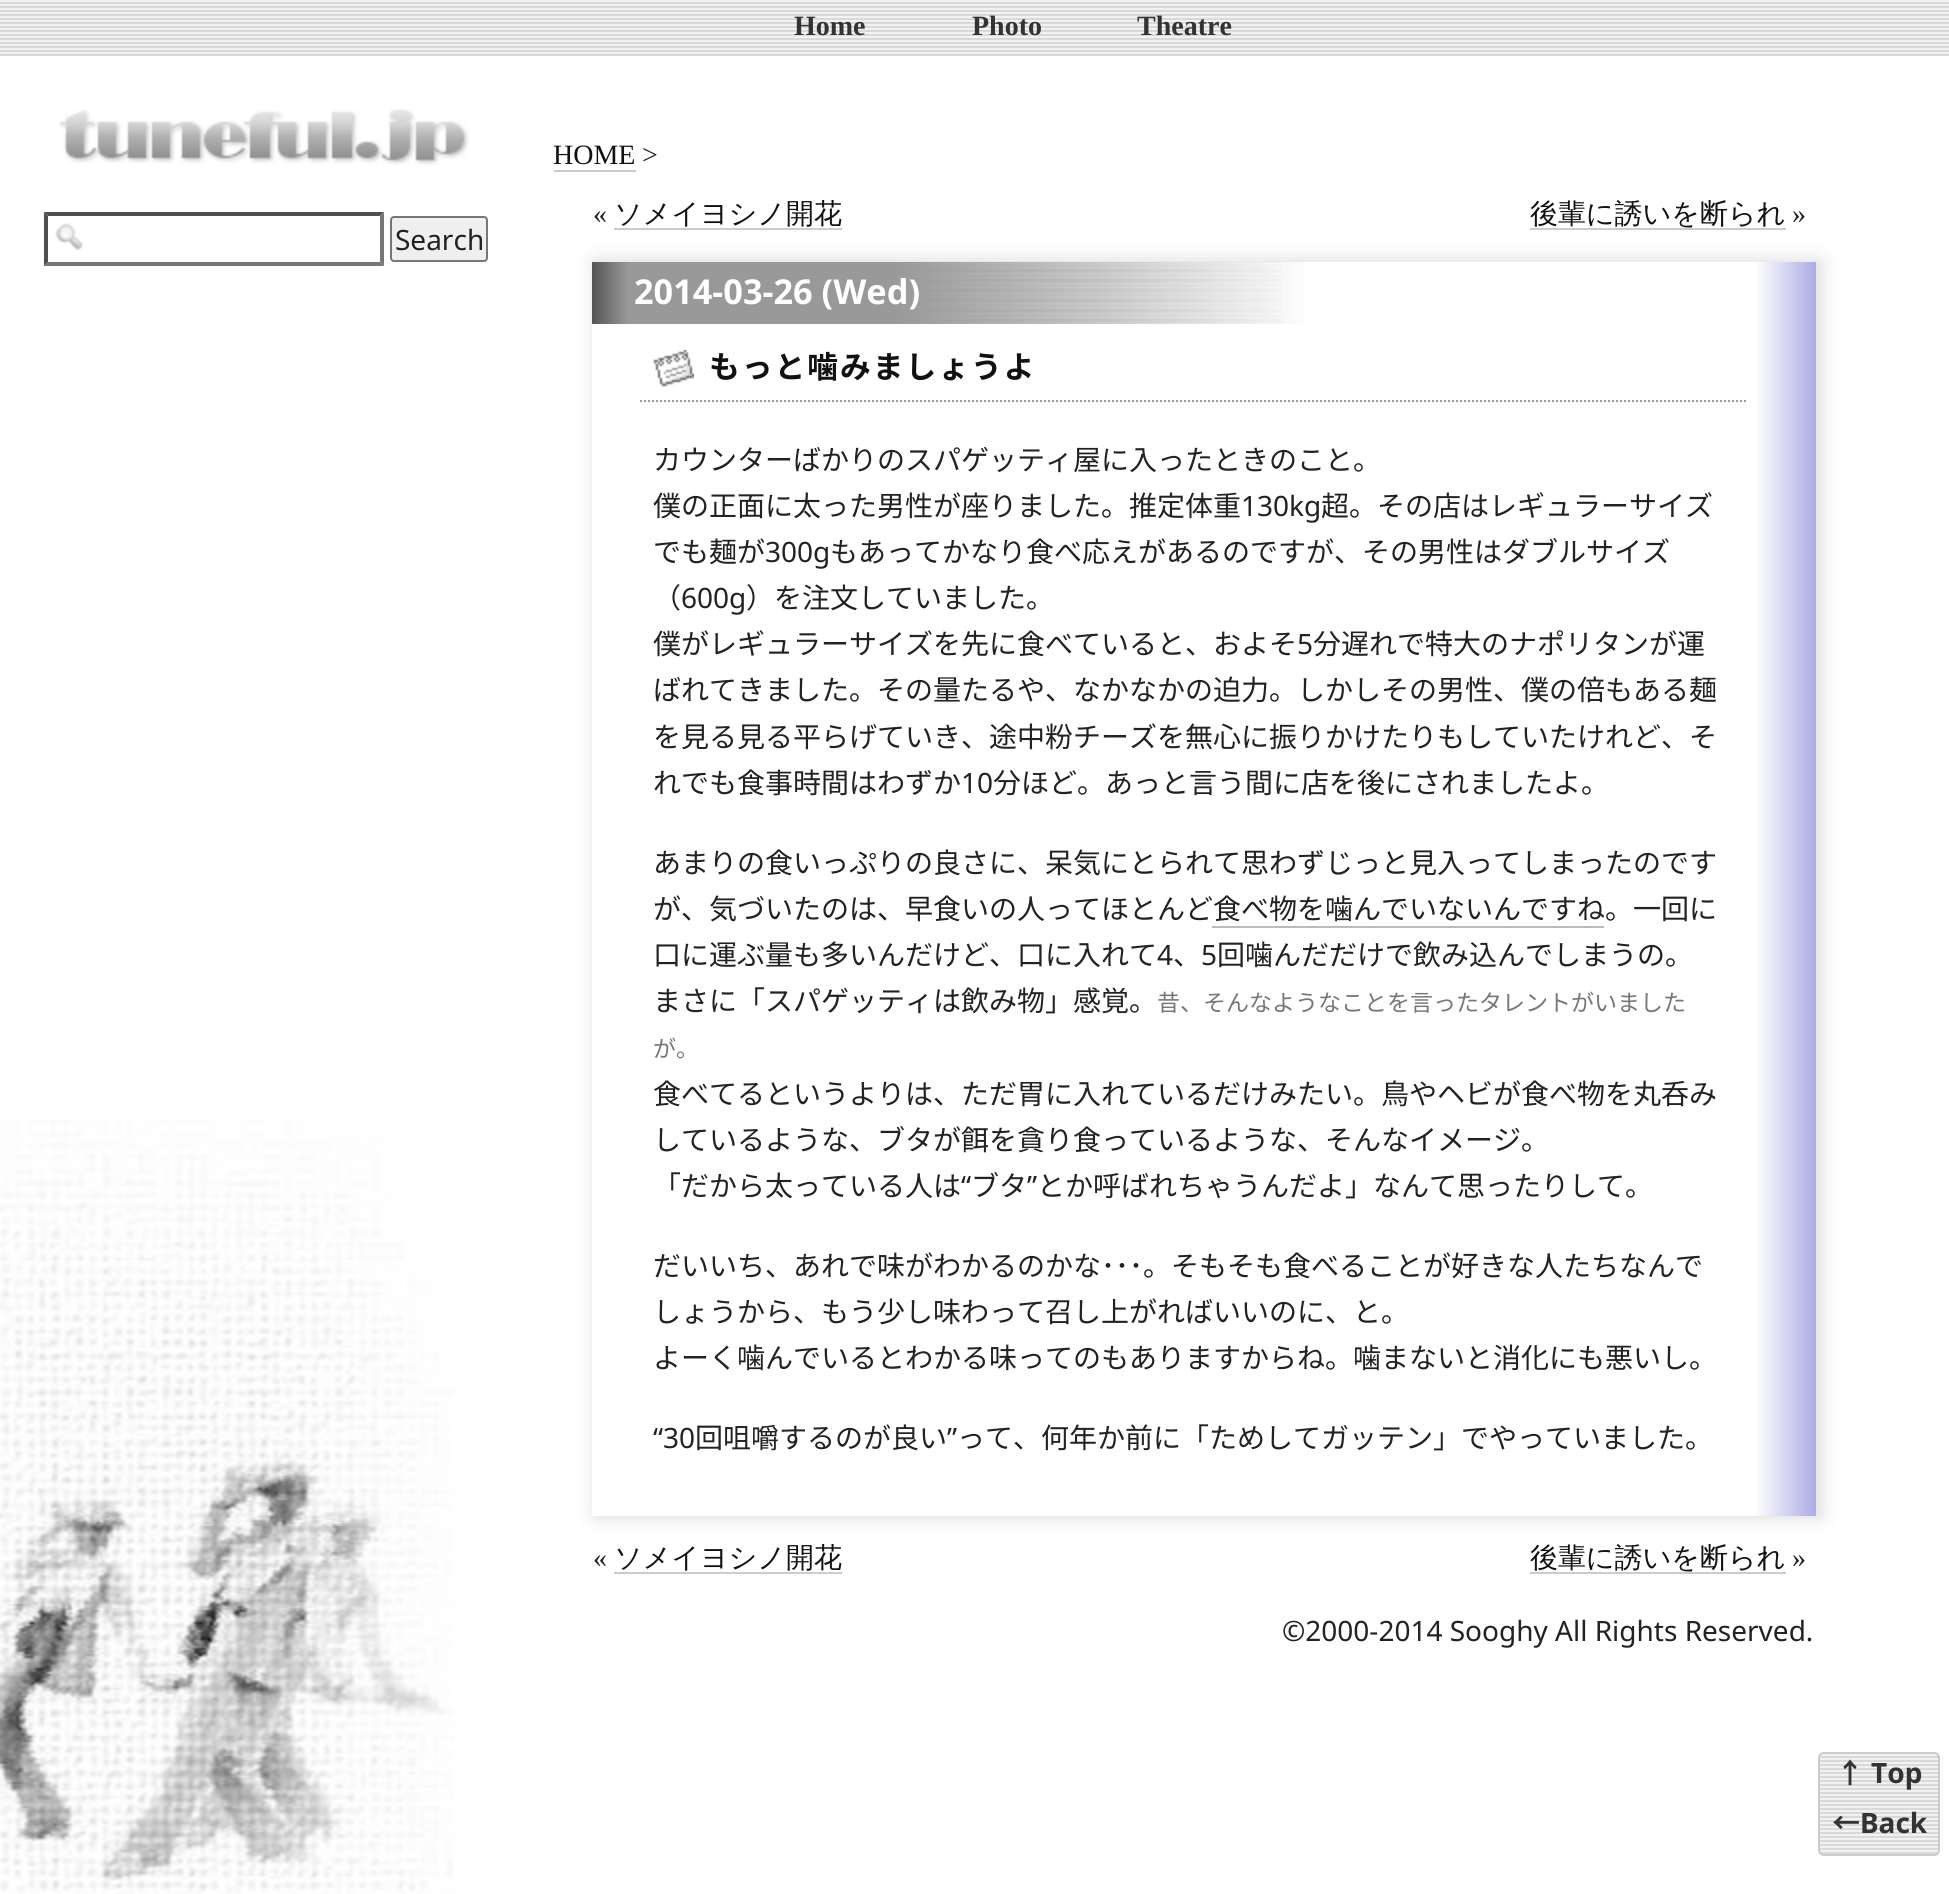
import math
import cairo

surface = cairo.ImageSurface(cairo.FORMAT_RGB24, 1949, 1894)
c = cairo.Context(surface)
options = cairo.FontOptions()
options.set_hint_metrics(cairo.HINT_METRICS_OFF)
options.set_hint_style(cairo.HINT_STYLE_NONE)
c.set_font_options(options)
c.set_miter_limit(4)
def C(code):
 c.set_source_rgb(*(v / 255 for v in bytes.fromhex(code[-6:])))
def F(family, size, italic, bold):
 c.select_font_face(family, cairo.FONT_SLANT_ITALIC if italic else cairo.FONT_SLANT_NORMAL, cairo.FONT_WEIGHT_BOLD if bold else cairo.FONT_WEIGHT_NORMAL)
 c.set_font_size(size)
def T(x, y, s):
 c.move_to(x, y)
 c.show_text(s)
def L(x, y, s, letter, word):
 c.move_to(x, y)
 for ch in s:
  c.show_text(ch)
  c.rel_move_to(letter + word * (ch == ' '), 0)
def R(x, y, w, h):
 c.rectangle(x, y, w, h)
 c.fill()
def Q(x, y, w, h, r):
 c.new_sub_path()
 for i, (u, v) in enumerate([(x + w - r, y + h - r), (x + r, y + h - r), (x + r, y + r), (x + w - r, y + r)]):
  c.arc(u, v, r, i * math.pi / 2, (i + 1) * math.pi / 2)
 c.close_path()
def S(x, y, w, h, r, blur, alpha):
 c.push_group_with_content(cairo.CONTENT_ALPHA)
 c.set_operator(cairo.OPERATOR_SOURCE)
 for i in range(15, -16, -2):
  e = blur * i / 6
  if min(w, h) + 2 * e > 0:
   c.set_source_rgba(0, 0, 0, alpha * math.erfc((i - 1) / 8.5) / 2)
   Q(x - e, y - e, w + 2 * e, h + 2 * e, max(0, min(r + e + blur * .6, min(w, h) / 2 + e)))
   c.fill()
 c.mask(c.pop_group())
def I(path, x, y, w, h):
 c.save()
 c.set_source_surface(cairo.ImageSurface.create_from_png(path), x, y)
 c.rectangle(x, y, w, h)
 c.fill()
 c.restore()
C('ffffff')
c.paint()
I('1.png',0,1120,454,774)
I('2.png',0,0,1949,56)
F('Liberation Serif',28,0,1)
C('333333')
T(794,35,'Home')
T(972,35,'Photo')
T(1137,35,'Theatre')
I('3.png',59,109,410,56)
I('4.png',55,223,28,27)
C('4f4f4f')
c.new_path()
c.move_to(44,212)
c.line_to(384,212)
c.line_to(380,216)
c.line_to(48,216)
c.close_path()
c.fill()
C('767676')
c.new_path()
c.move_to(384,212)
c.line_to(384,266)
c.line_to(380,262)
c.line_to(380,216)
c.close_path()
c.fill()
c.new_path()
c.move_to(384,266)
c.line_to(44,266)
c.line_to(48,262)
c.line_to(380,262)
c.close_path()
c.fill()
C('4f4f4f')
c.new_path()
c.move_to(44,266)
c.line_to(44,212)
c.line_to(48,216)
c.line_to(48,262)
c.close_path()
c.fill()
C('efefef')
Q(391,217,96,44,3)
c.fill_preserve()
C('767676')
c.stroke()
F('Noto Sans',28,0,0)
C('222222')
T(395,250,'Search')
F('Liberation Serif',28,0,0)
C('111111')
T(553,164,'HOME')
C('cccccc')
R(554,170,82,2)
C('222222')
T(642,164,'>')
T(593,223,'«')
F('WenQuanYi Zen Hei Medium',28,0,0)
C('111111')
T(614,223,'ソメイヨシノ開花')
C('cccccc')
R(614,228,228,2)
C('111111')
T(1530,223,'後輩に誘いを断られ')
C('cccccc')
R(1530,228,256,2)
F('Liberation Serif',28,0,0)
C('222222')
T(1792,223,'»')
C('999999')
S(596,262,1224,1254,0,10,.4)
gradient = cairo.LinearGradient(1816,889,592,889)
gradient.add_color_stop_rgba(0,0.675,0.675,0.894,1)
gradient.add_color_stop_rgba(.05,1,1,1,1)
gradient.add_color_stop_rgba(1,1,1,1,1)
c.set_source(gradient)
R(592,262,1224,1254)
I('5.png',895,262,387,61)
gradient = cairo.LinearGradient(592,293,1796,293)
gradient.add_color_stop_rgba(0,0.333,0.333,0.333,1)
gradient.add_color_stop_rgba(.03,0.6,0.6,0.6,1)
gradient.add_color_stop_rgba(.25,0.6,0.6,0.6,1)
gradient.add_color_stop_rgba(.6,0.6,0.6,0.6,0)
c.set_source(gradient)
R(592,262,712,62)
F('Noto Sans',34.25,0,1)
C('ffffff')
T(634,304,'2014-03-26 (Wed)')
I('6.png',653,350,41,37)
c.new_path()
c.move_to(640,401)
c.line_to(1748,401)
C('999999')
c.set_dash([2,2])
c.stroke()
F('Noto Sans JP',30.75,0,1)
C('111111')
L(709,378,'もっと噛みましょうよ',2,0)
F('Noto Sans JP',28,0,0)
C('222222')
T(653,470,'カウンターばかりのスパゲッティ屋に入ったときのこと。')
T(653,516,'僕の正面に太った男性が座りました。推定体重')
F('Noto Sans',28,0,0)
T(1241,516,'130kg')
F('Noto Sans JP',28,0,0)
T(1321,516,'超。その店はレギュラーサイズ')
T(653,562,'でも麺が')
F('Noto Sans',28,0,0)
T(765,562,'300g')
F('Noto Sans JP',28,0,0)
T(830,562,'もあってかなり食べ応えがあるのですが、その男性はダブルサイズ')
T(653,608,'（')
F('Noto Sans',28,0,0)
T(681,608,'600g')
F('Noto Sans JP',28,0,0)
T(746,608,'）を注文していました。')
T(653,654,'僕がレギュラーサイズを先に食べていると、およそ')
F('Noto Sans',28,0,0)
T(1297,654,'5')
F('Noto Sans JP',28,0,0)
T(1313,654,'分遅れで特大のナポリタンが運')
T(653,700,'ばれてきました。その量たるや、なかなかの迫力。しかしその男性、僕の倍もある麺')
T(653,747,'を見る見る平らげていき、途中粉チーズを無心に振りかけたりもしていたけれど、そ')
T(653,793,'れでも食事時間はわずか')
F('Noto Sans',28,0,0)
T(961,793,'10')
F('Noto Sans JP',28,0,0)
T(993,793,'分ほど。あっと言う間に店を後にされましたよ。')
T(653,873,'あまりの食いっぷりの良さに、呆気にとられて思わずじっと見入ってしまったのです')
T(653,919,'が、気づいたのは、早食いの人ってほとんど食べ物を噛んでいないんですね。一回に')
C('bbbbbb')
R(1212,926,392,2)
C('222222')
T(653,965,'口に運ぶ量も多いんだけど、口に入れて')
F('Noto Sans',28,0,0)
T(1157,965,'4')
F('Noto Sans JP',28,0,0)
T(1173,965,'、')
F('Noto Sans',28,0,0)
T(1201,965,'5')
F('Noto Sans JP',28,0,0)
T(1217,965,'回噛んだだけで飲み込んでしまうの。')
T(653,1011,'まさに「スパゲッティは飲み物」感覚。')
F('Noto Sans JP',23,0,0)
C('777777')
T(1157,1011,'昔、そんなようなことを言ったタレントがいました')
T(653,1057,'が。')
F('Noto Sans JP',28,0,0)
C('222222')
T(653,1104,'食べてるというよりは、ただ胃に入れているだけみたい。鳥やヘビが食べ物を丸呑み')
T(653,1150,'しているような、ブタが餌を貪り食っているような、そんなイメージ。')
T(653,1196,'「だから太っている人は')
F('Noto Sans',28,0,0)
T(961,1196,'“')
F('Noto Sans JP',28,0,0)
T(971,1196,'ブタ')
F('Noto Sans',28,0,0)
T(1027,1196,'”')
F('Noto Sans JP',28,0,0)
T(1037,1196,'とか呼ばれちゃうんだよ」なんて思ったりして。')
T(653,1276,'だいいち、あれで味がわかるのかな･･･。そもそも食べることが好きな人たちなんで')
T(653,1322,'しょうから、もう少し味わって召し上がればいいのに、と。')
T(653,1368,'よーく噛んでいるとわかる味ってのもありますからね。噛まないと消化にも悪いし。')
F('Noto Sans',28,0,0)
T(653,1448,'“30')
F('Noto Sans JP',28,0,0)
T(695,1448,'回咀嚼するのが良い')
F('Noto Sans',28,0,0)
T(947,1448,'”')
F('Noto Sans JP',28,0,0)
T(957,1448,'って、何年か前に「ためしてガッテン」でやっていました。')
F('Liberation Serif',28,0,0)
T(593,1567,'«')
F('WenQuanYi Zen Hei Medium',28,0,0)
C('111111')
T(614,1567,'ソメイヨシノ開花')
C('cccccc')
R(614,1572,228,2)
C('111111')
T(1530,1567,'後輩に誘いを断られ')
C('cccccc')
R(1530,1572,256,2)
F('Liberation Serif',28,0,0)
C('222222')
T(1792,1567,'»')
F('Noto Sans',28,0,0)
T(1282,1641,'©2000-2014 Sooghy All Rights Reserved.')
I('7.png',1818,1752,122,104)
Q(1819,1753,120,102,5)
C('cccccc')
c.set_dash([])
c.stroke()
F('Noto Sans JP',28,0,1)
C('333333')
T(1836,1783,'↑')
F('Noto Sans',28,0,1)
T(1871,1783,'Top')
F('Noto Sans JP',28,0,1)
T(1832,1833,'←')
F('Noto Sans',28,0,1)
T(1860,1833,'Back')
surface.write_to_png('o.png')
